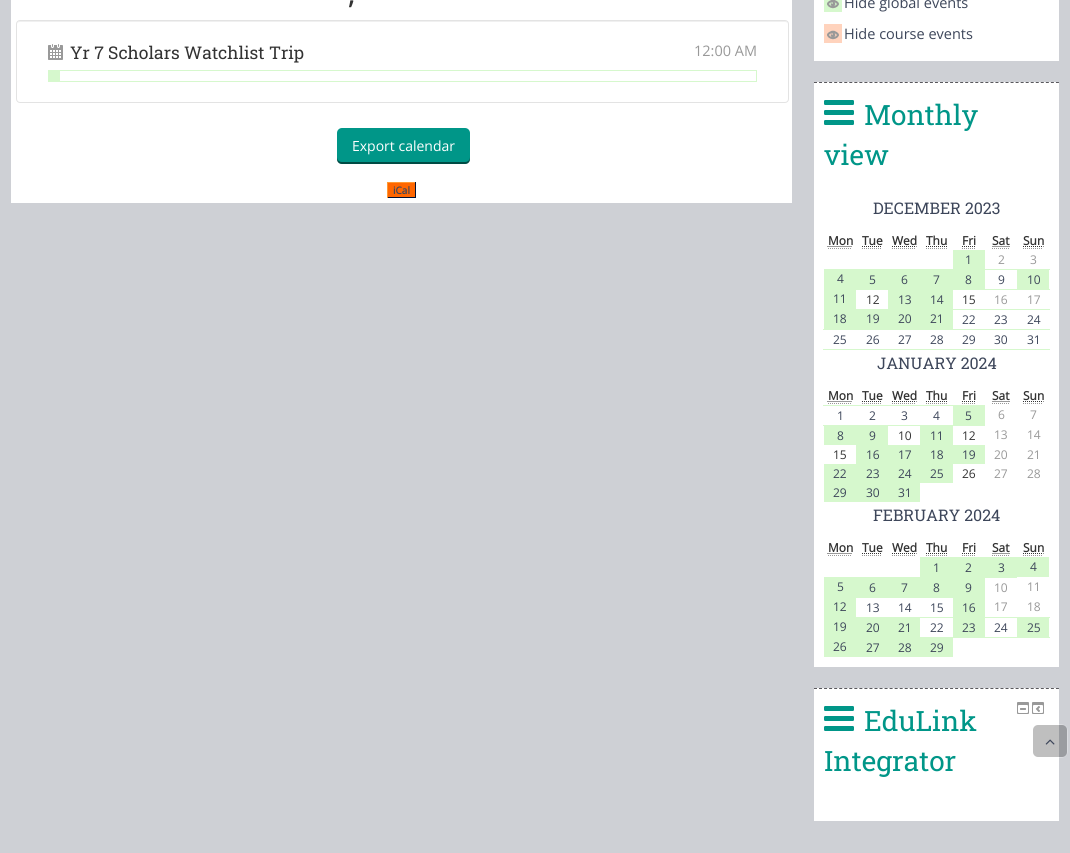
import math
import cairo

surface = cairo.ImageSurface(cairo.FORMAT_RGB24, 1070, 853)
c = cairo.Context(surface)
options = cairo.FontOptions()
options.set_hint_metrics(cairo.HINT_METRICS_OFF)
options.set_hint_style(cairo.HINT_STYLE_NONE)
c.set_font_options(options)
c.set_miter_limit(4)
def C(code):
 c.set_source_rgb(*(v / 255 for v in bytes.fromhex(code[-6:])))
def F(family, size, italic, bold):
 c.select_font_face(family, cairo.FONT_SLANT_ITALIC if italic else cairo.FONT_SLANT_NORMAL, cairo.FONT_WEIGHT_BOLD if bold else cairo.FONT_WEIGHT_NORMAL)
 c.set_font_size(size)
def T(x, y, s):
 c.move_to(x, y)
 c.show_text(s)
def R(x, y, w, h):
 c.rectangle(x, y, w, h)
 c.fill()
def Q(x, y, w, h, r):
 c.new_sub_path()
 for i, (u, v) in enumerate([(x + w - r, y + h - r), (x + r, y + h - r), (x + r, y + r), (x + w - r, y + r)]):
  c.arc(u, v, r, i * math.pi / 2, (i + 1) * math.pi / 2)
 c.close_path()
def S(x, y, w, h, r, blur, alpha):
 c.push_group_with_content(cairo.CONTENT_ALPHA)
 c.set_operator(cairo.OPERATOR_SOURCE)
 for i in range(15, -16, -2):
  e = blur * i / 6
  if min(w, h) + 2 * e > 0:
   c.set_source_rgba(0, 0, 0, alpha * math.erfc((i - 1) / 8.5) / 2)
   Q(x - e, y - e, w + 2 * e, h + 2 * e, max(0, min(r + e + blur * .6, min(w, h) / 2 + e)))
   c.fill()
 c.mask(c.pop_group())
def I(path, x, y, w, h):
 c.save()
 c.set_source_surface(cairo.ImageSurface.create_from_png(path), x, y)
 c.rectangle(x, y, w, h)
 c.fill()
 c.restore()
C('ced0d5')
c.paint()
C('ffffff')
R(11,0,781,203)
F('Open Sans',25,0,1)
C('333333')
T(348,4,',')
C('f0f0f0')
c.new_path()
c.move_to(20,22)
c.line_to(785,22)
c.curve_to(787,22,788,23,788,25)
c.curve_to(788,23,787,21,785,21)
c.line_to(20,21)
c.curve_to(18,21,17,23,17,25)
c.curve_to(17,23,18,22,20,22)
c.close_path()
c.fill()
Q(16.5,20.5,772,82,3.5)
C('e3e3e3')
c.set_line_width(1)
c.stroke()
I('1.png',48,44,15,16)
F('Roboto Slab',17.5,0,0)
C('333333')
T(70,59,'Yr 7 Scholars Watchlist Trip')
F('Open Sans',14.5,0,0)
C('999999')
T(694,56,'12:00 AM')
C('d6f8cd')
R(60,70,697,1)
R(756,70,1,12)
R(60,81,697,1)
R(48,70,12,12)
C('009688')
Q(337,128,133,36,5)
c.fill()
c.set_source_rgba(0,0,0,0.5)
c.new_path()
c.move_to(337,157)
c.line_to(337,159)
c.curve_to(337,162,339,164,342,164)
c.line_to(465,164)
c.curve_to(468,164,470,162,470,159)
c.line_to(470,157)
c.curve_to(470,160,468,162,465,162)
c.line_to(342,162)
c.curve_to(339,162,337,160,337,157)
c.close_path()
c.fill()
F('Open Sans',14,0,0)
C('ffffff')
T(352,151,'Export calendar')
C('ff6600')
R(388,183,27,14)
F('Open Sans',10,0,1)
C('3d465a')
T(393,194,'iCal')
C('ff9933')
R(387,182,29,1)
C('001133')
R(415,182,1,16)
R(387,197,29,1)
C('ff9933')
R(387,182,1,16)
C('ffffff')
R(814,0,245,61)
C('d6f8cd')
R(824,0,18,12)
I('2.png',827,0,12,9)
F('Open Sans',14.5,0,0)
C('3d465a')
T(844,8,'Hide global events')
C('ffd3bd')
R(824,24,18,19)
I('3.png',827,30,12,10)
C('3d465a')
T(844,39,'Hide course events')
C('ffffff')
R(814,82,245,585)
c.new_path()
c.move_to(814,82.5)
c.line_to(1059,82.5)
C('59585d')
c.set_dash([3,2.04])
c.stroke()
I('4.png',824,100,30,25)
F('Roboto Slab',28,0,0)
C('009688')
T(864,125,'Monthly')
T(824,165,'view')
F('Roboto Slab',16,0,0)
C('3d465a')
T(873,214,'DECEMBER 2023')
F('Open Sans',12,0,1)
C('333333')
T(828,245,'Mon')
c.new_path()
c.move_to(828,248.5)
c.line_to(852,248.5)
C('999999')
c.set_dash([1,1])
c.stroke()
c.new_path()
c.move_to(827.5,246.5)
c.line_to(852,246.5)
C('333333')
c.stroke()
T(862,245,'Tue')
c.new_path()
c.move_to(862,248.5)
c.line_to(882,248.5)
C('999999')
c.stroke()
c.new_path()
c.move_to(862,246.5)
c.line_to(882,246.5)
C('333333')
c.stroke()
T(892,245,'Wed')
c.new_path()
c.move_to(892,248.5)
c.line_to(916,248.5)
C('999999')
c.stroke()
c.new_path()
c.move_to(892,246.5)
c.line_to(916.5,246.5)
C('333333')
c.stroke()
T(926,245,'Thu')
c.new_path()
c.move_to(926,248.5)
c.line_to(947,248.5)
C('999999')
c.stroke()
c.new_path()
c.move_to(926,246.5)
c.line_to(947,246.5)
C('333333')
c.stroke()
T(962,245,'Fri')
c.new_path()
c.move_to(962,248.5)
c.line_to(976,248.5)
C('999999')
c.stroke()
c.new_path()
c.move_to(962,246.5)
c.line_to(975.5,246.5)
C('333333')
c.stroke()
T(992,245,'Sat')
c.new_path()
c.move_to(992,248.5)
c.line_to(1009,248.5)
C('999999')
c.stroke()
c.new_path()
c.move_to(992.5,246.5)
c.line_to(1009.5,246.5)
C('333333')
c.stroke()
T(1023,245,'Sun')
c.new_path()
c.move_to(1023,248.5)
c.line_to(1043,248.5)
C('999999')
c.stroke()
c.new_path()
c.move_to(1023,246.5)
c.line_to(1043.5,246.5)
C('333333')
c.stroke()
C('d6f8cd')
R(953,250,32,19)
F('Open Sans',12,0,0)
C('3d465a')
T(965,264,'1')
C('999999')
T(998,264,'2')
T(1030,264,'3')
C('d6f8cd')
R(824,269,161,20)
C('3d465a')
T(837,283,'4')
C('d6f8cd')
R(888,289,65,20)
R(856,289,33,1)
C('3d465a')
T(869,284,'5')
T(901,284,'6')
T(933,284,'7')
T(965,284,'8')
T(998,284,'9')
C('d6f8cd')
R(1017,270,32,19)
R(984,269,66,1)
R(952,289,98,1)
C('3d465a')
T(1027,284,'10')
C('d6f8cd')
R(824,289,32,40)
C('3d465a')
T(833,303,'11')
C('333333')
T(866,304,'12')
C('3d465a')
T(898,304,'13')
T(930,304,'14')
C('333333')
T(962,304,'15')
C('999999')
T(994,304,'16')
T(1027,304,'17')
C('3d465a')
T(833,323,'18')
C('d6f8cd')
R(856,309,97,20)
C('3d465a')
T(866,323,'19')
T(898,323,'20')
T(930,323,'21')
T(962,324,'22')
T(994,324,'23')
C('d6f8cd')
R(952,309,98,1)
C('3d465a')
T(1027,324,'24')
T(833,344,'25')
T(866,344,'26')
T(898,344,'27')
T(930,344,'28')
T(962,344,'29')
T(994,344,'30')
C('d6f8cd')
R(823,329,227,1)
R(823,349,227,1)
C('3d465a')
T(1027,344,'31')
F('Roboto Slab',16,0,0)
T(877,369,'JANUARY 2024')
F('Open Sans',12,0,1)
C('333333')
T(828,400,'Mon')
c.new_path()
c.move_to(828,403.5)
c.line_to(852,403.5)
C('999999')
c.stroke()
c.new_path()
c.move_to(827.5,401.5)
c.line_to(852,401.5)
C('333333')
c.stroke()
T(862,400,'Tue')
c.new_path()
c.move_to(862,403.5)
c.line_to(882,403.5)
C('999999')
c.stroke()
c.new_path()
c.move_to(862,401.5)
c.line_to(882,401.5)
C('333333')
c.stroke()
T(892,400,'Wed')
c.new_path()
c.move_to(892,403.5)
c.line_to(916,403.5)
C('999999')
c.stroke()
c.new_path()
c.move_to(892,401.5)
c.line_to(916.5,401.5)
C('333333')
c.stroke()
T(926,400,'Thu')
c.new_path()
c.move_to(926,403.5)
c.line_to(947,403.5)
C('999999')
c.stroke()
c.new_path()
c.move_to(926,401.5)
c.line_to(947,401.5)
C('333333')
c.stroke()
T(962,400,'Fri')
c.new_path()
c.move_to(962,403.5)
c.line_to(976,403.5)
C('999999')
c.stroke()
c.new_path()
c.move_to(962,401.5)
c.line_to(975.5,401.5)
C('333333')
c.stroke()
T(992,400,'Sat')
c.new_path()
c.move_to(992,403.5)
c.line_to(1009,403.5)
C('999999')
c.stroke()
c.new_path()
c.move_to(992.5,401.5)
c.line_to(1009.5,401.5)
C('333333')
c.stroke()
T(1023,400,'Sun')
c.new_path()
c.move_to(1023,403.5)
c.line_to(1043,403.5)
C('999999')
c.stroke()
c.new_path()
c.move_to(1023,401.5)
c.line_to(1043.5,401.5)
C('333333')
c.stroke()
C('d6f8cd')
R(856,425,32,39)
R(823,425,34,1)
F('Open Sans',12,0,0)
C('3d465a')
T(837,420,'1')
T(869,420,'2')
C('d6f8cd')
R(920,425,33,20)
R(888,425,33,1)
C('3d465a')
T(901,420,'3')
T(933,420,'4')
C('d6f8cd')
R(953,406,32,19)
R(823,405,162,1)
R(952,425,33,1)
C('3d465a')
T(965,420,'5')
C('999999')
T(998,419,'6')
T(1030,419,'7')
C('d6f8cd')
R(824,426,32,19)
C('3d465a')
T(837,440,'8')
T(869,440,'9')
C('333333')
T(898,440,'10')
C('3d465a')
T(930,440,'11')
C('333333')
T(962,440,'12')
C('999999')
T(994,439,'13')
T(1027,439,'14')
C('333333')
T(833,459,'15')
C('3d465a')
T(866,459,'16')
C('d6f8cd')
R(888,445,97,19)
C('3d465a')
T(898,459,'17')
T(930,459,'18')
T(962,459,'19')
C('999999')
T(994,459,'20')
T(1027,459,'21')
C('d6f8cd')
R(824,464,129,19)
C('3d465a')
T(833,478,'22')
T(866,478,'23')
T(898,478,'24')
T(930,478,'25')
C('333333')
T(962,478,'26')
C('999999')
T(994,478,'27')
T(1027,478,'28')
C('d6f8cd')
R(824,483,96,19)
C('3d465a')
T(833,497,'29')
T(866,497,'30')
T(898,497,'31')
F('Roboto Slab',16,0,0)
T(873,521,'FEBRUARY 2024')
F('Open Sans',12,0,1)
C('333333')
T(828,552,'Mon')
c.new_path()
c.move_to(828,555.5)
c.line_to(852,555.5)
C('999999')
c.stroke()
c.new_path()
c.move_to(827.5,553.5)
c.line_to(852,553.5)
C('333333')
c.stroke()
T(862,552,'Tue')
c.new_path()
c.move_to(862,555.5)
c.line_to(882,555.5)
C('999999')
c.stroke()
c.new_path()
c.move_to(862,553.5)
c.line_to(882,553.5)
C('333333')
c.stroke()
T(892,552,'Wed')
c.new_path()
c.move_to(892,555.5)
c.line_to(916,555.5)
C('999999')
c.stroke()
c.new_path()
c.move_to(892,553.5)
c.line_to(916.5,553.5)
C('333333')
c.stroke()
T(926,552,'Thu')
c.new_path()
c.move_to(926,555.5)
c.line_to(947,555.5)
C('999999')
c.stroke()
c.new_path()
c.move_to(926,553.5)
c.line_to(947,553.5)
C('333333')
c.stroke()
T(962,552,'Fri')
c.new_path()
c.move_to(962,555.5)
c.line_to(976,555.5)
C('999999')
c.stroke()
c.new_path()
c.move_to(962,553.5)
c.line_to(975.5,553.5)
C('333333')
c.stroke()
T(992,552,'Sat')
c.new_path()
c.move_to(992,555.5)
c.line_to(1009,555.5)
C('999999')
c.stroke()
c.new_path()
c.move_to(992.5,553.5)
c.line_to(1009.5,553.5)
C('333333')
c.stroke()
T(1023,552,'Sun')
c.new_path()
c.move_to(1023,555.5)
c.line_to(1043,555.5)
C('999999')
c.stroke()
c.new_path()
c.move_to(1023,553.5)
c.line_to(1043.5,553.5)
C('333333')
c.stroke()
C('d6f8cd')
R(920,557,129,20)
F('Open Sans',12,0,0)
C('3d465a')
T(933,572,'1')
T(965,572,'2')
C('d6f8cd')
R(824,577,161,20)
R(984,577,33,1)
C('3d465a')
T(998,572,'3')
T(1030,571,'4')
T(837,591,'5')
T(869,592,'6')
T(901,592,'7')
T(933,592,'8')
T(965,592,'9')
C('999999')
T(994,592,'10')
T(1027,591,'11')
C('d6f8cd')
R(824,597,32,60)
C('3d465a')
T(833,611,'12')
T(866,612,'13')
T(898,612,'14')
T(930,612,'15')
C('d6f8cd')
R(953,598,32,19)
R(856,597,129,1)
C('3d465a')
T(962,612,'16')
C('999999')
T(994,611,'17')
T(1027,611,'18')
C('3d465a')
T(833,631,'19')
C('d6f8cd')
R(856,617,64,20)
C('3d465a')
T(866,632,'20')
T(898,632,'21')
T(930,632,'22')
C('d6f8cd')
R(953,618,32,19)
C('3d465a')
T(962,632,'23')
T(994,632,'24')
C('d6f8cd')
R(1017,618,32,19)
R(920,617,130,1)
R(856,637,97,20)
R(952,637,98,1)
C('3d465a')
T(1027,632,'25')
T(833,651,'26')
T(866,652,'27')
T(898,652,'28')
T(930,652,'29')
C('ffffff')
R(814,688,245,133)
c.new_path()
c.move_to(814,688.5)
c.line_to(1059,688.5)
C('59585d')
c.set_dash([3,2.04])
c.stroke()
I('4.png',824,706,30,25)
F('Roboto Slab',28,0,0)
C('009688')
T(864,731,'EduLink')
T(824,771,'Integrator')
I('5.png',1017,702,12,12)
I('6.png',1032,702,12,12)
c.save()
c.set_fill_rule(cairo.FILL_RULE_EVEN_ODD)
c.new_path()
c.move_to(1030,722)
c.line_to(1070,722)
c.line_to(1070,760)
c.line_to(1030,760)
c.close_path()
c.move_to(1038,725)
c.line_to(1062,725)
c.curve_to(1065,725,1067,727,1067,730)
c.line_to(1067,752)
c.curve_to(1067,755,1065,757,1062,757)
c.line_to(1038,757)
c.curve_to(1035,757,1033,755,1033,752)
c.line_to(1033,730)
c.curve_to(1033,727,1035,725,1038,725)
c.close_path()
c.clip()
C('ffffff')
S(1033,725,34,32,5,.5,1)
c.restore()
c.set_source_rgba(0,0,0,0.25)
Q(1033,725,34,32,5)
c.fill()
I('7.png',1045,739,10,6)
surface.write_to_png('o.png')
